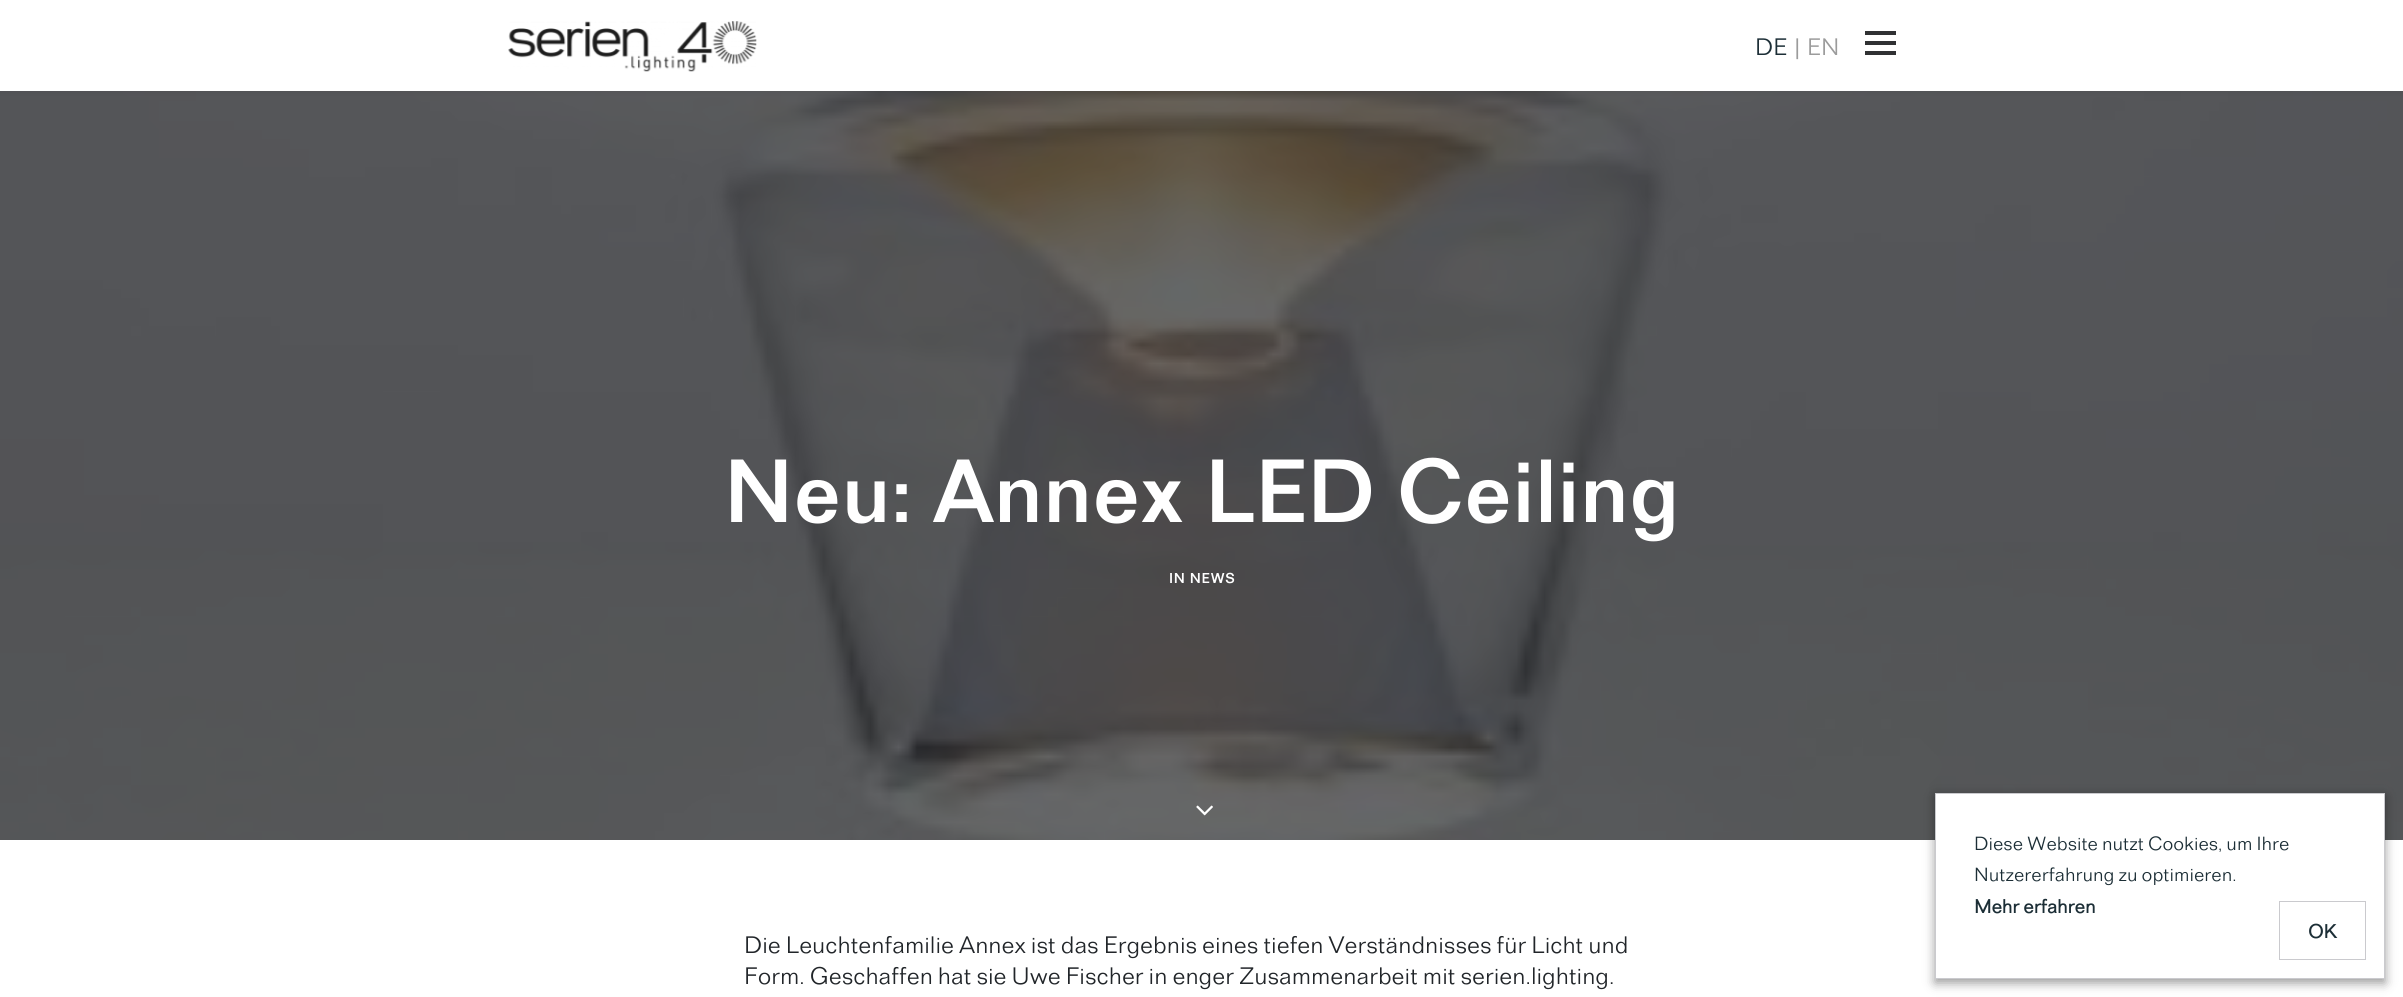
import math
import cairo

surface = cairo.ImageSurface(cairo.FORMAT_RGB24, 2403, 997)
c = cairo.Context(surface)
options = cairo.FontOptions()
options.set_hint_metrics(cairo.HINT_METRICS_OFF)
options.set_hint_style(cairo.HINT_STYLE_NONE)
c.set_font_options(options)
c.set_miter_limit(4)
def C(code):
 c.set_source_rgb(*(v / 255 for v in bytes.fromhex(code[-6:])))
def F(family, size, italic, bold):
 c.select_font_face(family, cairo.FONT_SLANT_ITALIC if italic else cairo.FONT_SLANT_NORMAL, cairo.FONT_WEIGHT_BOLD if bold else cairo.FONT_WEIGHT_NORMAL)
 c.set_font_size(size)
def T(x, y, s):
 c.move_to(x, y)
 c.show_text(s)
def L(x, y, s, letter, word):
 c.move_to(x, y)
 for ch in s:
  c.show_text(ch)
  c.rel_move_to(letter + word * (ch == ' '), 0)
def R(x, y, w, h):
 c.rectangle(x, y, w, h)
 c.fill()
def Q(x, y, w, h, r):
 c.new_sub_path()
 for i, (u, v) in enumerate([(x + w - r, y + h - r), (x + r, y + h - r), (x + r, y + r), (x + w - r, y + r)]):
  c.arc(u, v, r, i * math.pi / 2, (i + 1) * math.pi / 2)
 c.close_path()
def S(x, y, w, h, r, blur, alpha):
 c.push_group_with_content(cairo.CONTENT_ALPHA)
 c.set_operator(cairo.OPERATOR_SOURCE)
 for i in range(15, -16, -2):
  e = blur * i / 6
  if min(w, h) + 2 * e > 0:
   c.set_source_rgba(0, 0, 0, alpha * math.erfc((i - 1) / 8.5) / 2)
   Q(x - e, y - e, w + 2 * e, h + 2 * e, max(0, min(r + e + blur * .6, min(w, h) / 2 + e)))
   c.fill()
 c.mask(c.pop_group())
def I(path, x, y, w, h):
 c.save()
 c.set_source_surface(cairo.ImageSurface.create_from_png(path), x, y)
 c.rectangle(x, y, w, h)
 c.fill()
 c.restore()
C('ffffff')
c.paint()
I('2.png',0,91,2403,749)
C('000000')
S(-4,1,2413,89,0,4.5,.1)
C('ffffff')
R(0,0,2403,91)
I('1.png',508,21,249,51)
F('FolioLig',25,0,0)
C('1c2e36')
T(1755,55,'DE')
C('9b9b9b')
T(1791,55,'|')
T(1807,55,'EN')
C('303133')
R(1865,41,31,4)
R(1865,31,31,4)
R(1865,51,31,4)
F('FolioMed',93.75,0,0)
C('ffffff')
T(724,522,'Neu: Annex LED Ceiling')
F('FolioMed',15,0,0)
L(1169,583,'IN NEWS',.75,0)
I('3.png',1196,805,17,11)
F('FolioLig',25,0,0)
C('212529')
T(744,953,'Die Leuchtenfamilie Annex ist das Ergebnis eines tiefen Verständnisses für Licht und')
T(744,984,'Form. Geschaffen hat sie Uwe Fischer in enger Zusammenarbeit mit serien.lighting.')
C('000000')
S(1935,796,450,187,0,5.5,.4)
C('ffffff')
c.rectangle(1935.5,793.5,449,185)
c.fill_preserve()
C('cacace')
c.set_line_width(1)
c.stroke()
F('FolioLig',20,0,0)
C('1c2e36')
T(1974,850,'Diese Website nutzt Cookies, um Ihre')
T(1974,881,'Nutzererfahrung zu optimieren.')
F('FolioLig',20,0,1)
T(1974,913,'Mehr erfahren')
c.rectangle(2279.5,901.5,86,58)
C('cacace')
c.stroke()
C('1c2e36')
T(2308,938,'OK')
surface.write_to_png('o.png')
